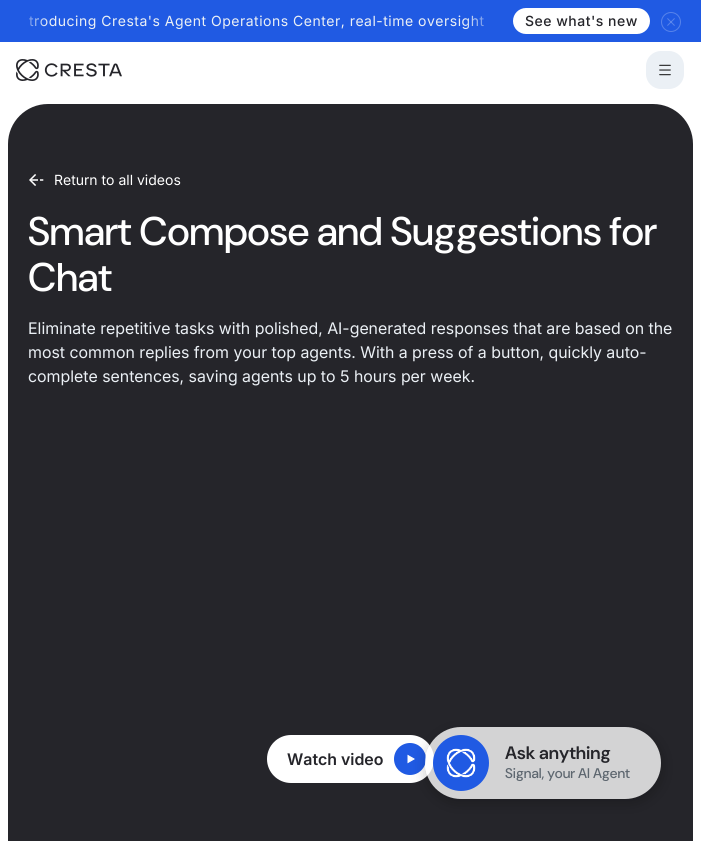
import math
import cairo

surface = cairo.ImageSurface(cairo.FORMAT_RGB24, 701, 841)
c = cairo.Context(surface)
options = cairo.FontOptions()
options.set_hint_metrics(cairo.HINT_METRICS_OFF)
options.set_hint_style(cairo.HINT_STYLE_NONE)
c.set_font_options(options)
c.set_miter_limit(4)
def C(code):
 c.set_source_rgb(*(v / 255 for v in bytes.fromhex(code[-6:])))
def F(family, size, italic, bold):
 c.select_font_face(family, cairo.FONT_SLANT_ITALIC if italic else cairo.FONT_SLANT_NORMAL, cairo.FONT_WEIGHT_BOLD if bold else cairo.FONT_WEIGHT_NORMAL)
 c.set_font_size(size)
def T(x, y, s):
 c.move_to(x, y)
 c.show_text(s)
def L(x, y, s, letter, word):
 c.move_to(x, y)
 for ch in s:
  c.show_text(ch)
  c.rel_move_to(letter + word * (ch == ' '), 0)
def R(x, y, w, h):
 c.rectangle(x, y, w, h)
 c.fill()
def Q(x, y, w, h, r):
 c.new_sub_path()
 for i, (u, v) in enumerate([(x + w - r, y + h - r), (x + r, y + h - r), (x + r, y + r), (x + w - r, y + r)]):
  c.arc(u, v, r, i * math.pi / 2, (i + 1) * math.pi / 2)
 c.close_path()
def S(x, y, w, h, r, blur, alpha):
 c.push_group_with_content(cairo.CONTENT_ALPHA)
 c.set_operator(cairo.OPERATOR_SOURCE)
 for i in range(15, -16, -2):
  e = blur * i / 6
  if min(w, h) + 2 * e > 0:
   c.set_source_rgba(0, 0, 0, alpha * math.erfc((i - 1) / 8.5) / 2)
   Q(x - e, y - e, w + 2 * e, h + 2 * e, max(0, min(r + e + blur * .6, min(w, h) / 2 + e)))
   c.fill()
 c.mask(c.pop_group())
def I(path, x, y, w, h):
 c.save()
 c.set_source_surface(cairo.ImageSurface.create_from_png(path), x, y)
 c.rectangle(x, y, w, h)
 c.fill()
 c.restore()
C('ffffff')
c.paint()
C('205ae3')
R(0,0,701,42)
F('Inter',14,0,0)
C('ebf0f5')
L(29,26,'troducing Cresta\'s Agent Operations Center, real-time oversight',.5,0)
gradient = cairo.LinearGradient(16,22,48,22)
gradient.add_color_stop_rgba(0,0.125,0.353,0.89,1)
gradient.add_color_stop_rgba(1,0.125,0.353,0.89,0)
c.set_source(gradient)
R(29,16,18,11)
gradient = cairo.LinearGradient(465,22,497,22)
gradient.add_color_stop_rgba(0,0.125,0.353,0.89,0)
gradient.add_color_stop_rgba(1,0.125,0.353,0.89,1)
c.set_source(gradient)
R(466,15,18,14)
C('ffffff')
Q(513,8,137,26,13)
c.fill()
F('Inter Medium',14,0,0)
C('25252a')
L(525,26,'See what\'s new',.5,0)
I('1.png',661,12,20,20)
I('2.png',16,59,106,22)
C('ebf0f5')
Q(646,51,38,38,15)
c.fill()
I('3.png',659,64,12,12)
C('25252a')
Q(8,104,685,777,40)
c.fill()
I('4.png',29,174,15,12)
F('Inter',14,0,0)
C('ffffff')
T(54,185,'Return to all videos')
F('DM Sans Medium',40,0,0)
T(28,245,'Smart Compose and Suggestions for')
T(28,291,'Chat')
F('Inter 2',16,0,0)
C('ebf0f5')
T(28,334,'Eliminate repetitive tasks with polished, AI-generated responses that are based on the')
T(28,358,'most common replies from your top agents. With a press of a button, quickly auto-')
T(28,382,'complete sentences, saving agents up to 5 hours per week.')
C('ffffff')
Q(267,735,167,48,24)
c.fill()
F('Inter SemiBold',16,0,0)
C('25252a')
T(287,765,'Watch video')
C('205ae3')
c.new_path()
c.arc(410,759,16,0,2 * math.pi)
c.fill()
I('5.png',407,754,8,10)
c.save()
c.set_fill_rule(cairo.FILL_RULE_EVEN_ODD)
c.new_path()
c.move_to(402,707)
c.line_to(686,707)
c.line_to(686,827)
c.line_to(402,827)
c.close_path()
c.move_to(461,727)
c.line_to(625,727)
c.curve_to(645,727,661,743,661,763)
c.curve_to(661,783,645,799,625,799)
c.line_to(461,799)
c.curve_to(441,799,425,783,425,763)
c.curve_to(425,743,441,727,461,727)
c.close_path()
c.clip()
C('000000')
S(426,731,236,72,36,7.5,.24)
c.restore()
c.set_source_rgba(1,1,1,0.8)
Q(425,727,236,72,36)
c.fill()
C('205ae3')
c.arc(461,763,28,0,2 * math.pi)
c.fill()
I('6.png',446,748,30,30)
F('DM Sans SemiBold',18,0,0)
C('25252a')
T(505,759,'Ask anything')
F('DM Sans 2 Medium',14,0,0)
C('5d666f')
T(505,778,'Signal, your AI Agent')
surface.write_to_png('o.png')
